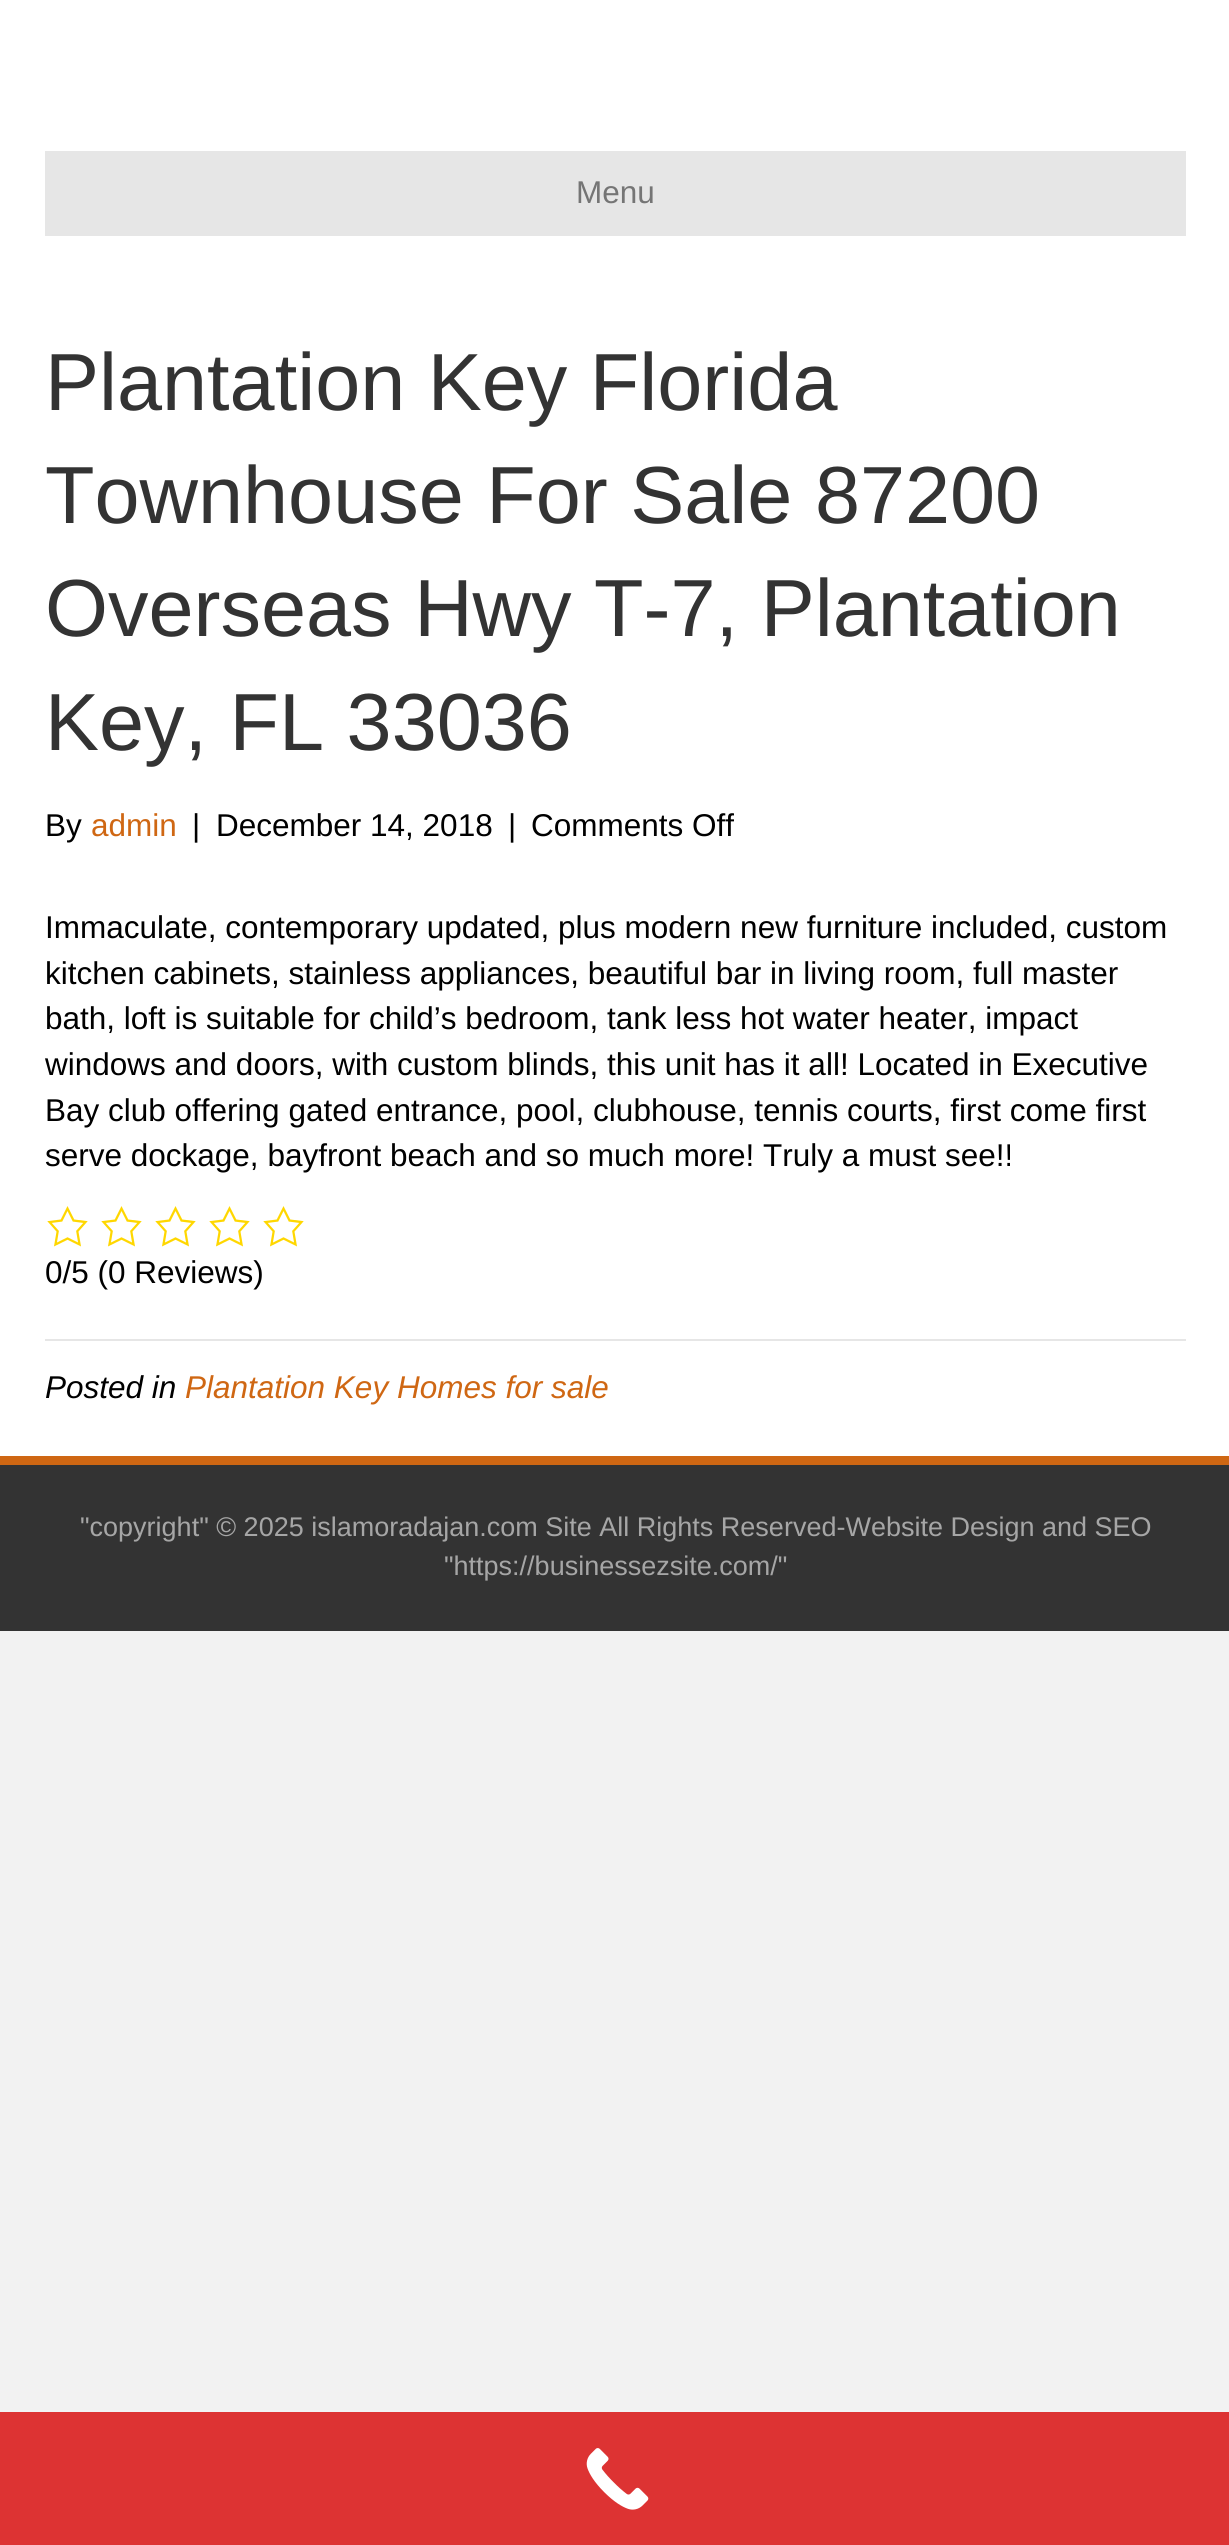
import math
import cairo

surface = cairo.ImageSurface(cairo.FORMAT_RGB24, 1229, 2545)
c = cairo.Context(surface)
options = cairo.FontOptions()
options.set_hint_metrics(cairo.HINT_METRICS_OFF)
options.set_hint_style(cairo.HINT_STYLE_NONE)
c.set_font_options(options)
c.set_miter_limit(4)
def C(code):
 c.set_source_rgb(*(v / 255 for v in bytes.fromhex(code[-6:])))
def F(family, size, italic, bold):
 c.select_font_face(family, cairo.FONT_SLANT_ITALIC if italic else cairo.FONT_SLANT_NORMAL, cairo.FONT_WEIGHT_BOLD if bold else cairo.FONT_WEIGHT_NORMAL)
 c.set_font_size(size)
def T(x, y, s):
 c.move_to(x, y)
 c.show_text(s)
def R(x, y, w, h):
 c.rectangle(x, y, w, h)
 c.fill()
def I(path, x, y, w, h):
 c.save()
 c.set_source_surface(cairo.ImageSurface.create_from_png(path), x, y)
 c.rectangle(x, y, w, h)
 c.fill()
 c.restore()
C('f2f2f2')
c.paint()
C('ffffff')
R(0,0,1229,1456)
C('e6e6e6')
R(45,151,1141,85)
F('Liberation Sans',31.5,0,0)
C('757575')
T(576,203,'Menu')
F('Liberation Sans',81,0,0)
C('333333')
T(45,410,'Plantation Key Florida')
T(45,523,'Townhouse For Sale 87200')
T(45,636,'Overseas Hwy T-7, Plantation')
T(45,750,'Key, FL 33036')
F('Liberation Sans',31.5,0,0)
C('000000')
T(45,836,'By')
C('cf6713')
T(91,836,'admin')
C('000000')
T(192,836,'|')
T(216,836,'December 14, 2018')
T(508,836,'|')
T(531,836,'Comments Off')
T(45,938,'Immaculate, contemporary updated, plus modern new furniture included, custom')
T(45,984,'kitchen cabinets, stainless appliances, beautiful bar in living room, full master')
T(45,1029,'bath, loft is suitable for child’s bedroom, tank less hot water heater, impact')
T(45,1075,'windows and doors, with custom blinds, this unit has it all! Located in Executive')
T(45,1121,'Bay club offering gated entrance, pool, clubhouse, tennis courts, first come first')
T(45,1166,'serve dockage, bayfront beach and so much more! Truly a must see!!')
I('1.png',47,1206,41,41)
I('1.png',101,1206,41,41)
I('1.png',155,1206,41,41)
I('1.png',209,1206,41,41)
I('1.png',263,1206,41,41)
T(45,1283,'0/5 (0 Reviews)')
C('e6e6e6')
R(45,1339,1141,2)
F('Liberation Sans',31.5,1,0)
C('000000')
T(45,1398,'Posted in')
C('cf6713')
T(185,1398,'Plantation Key Homes for sale')
C('333333')
R(0,1465,1229,166)
C('cf6713')
R(0,1456,1229,9)
F('Liberation Sans',27,0,0)
C('a6a6a6')
T(80,1536,'"copyright" © 2025 islamoradajan.com Site All Rights Reserved-Website Design and SEO')
T(444,1575,'"https://businessezsite.com/"')
C('dd3333')
R(0,2412,1229,133)
I('2.png',586,2448,63,62)
surface.write_to_png('o.png')
